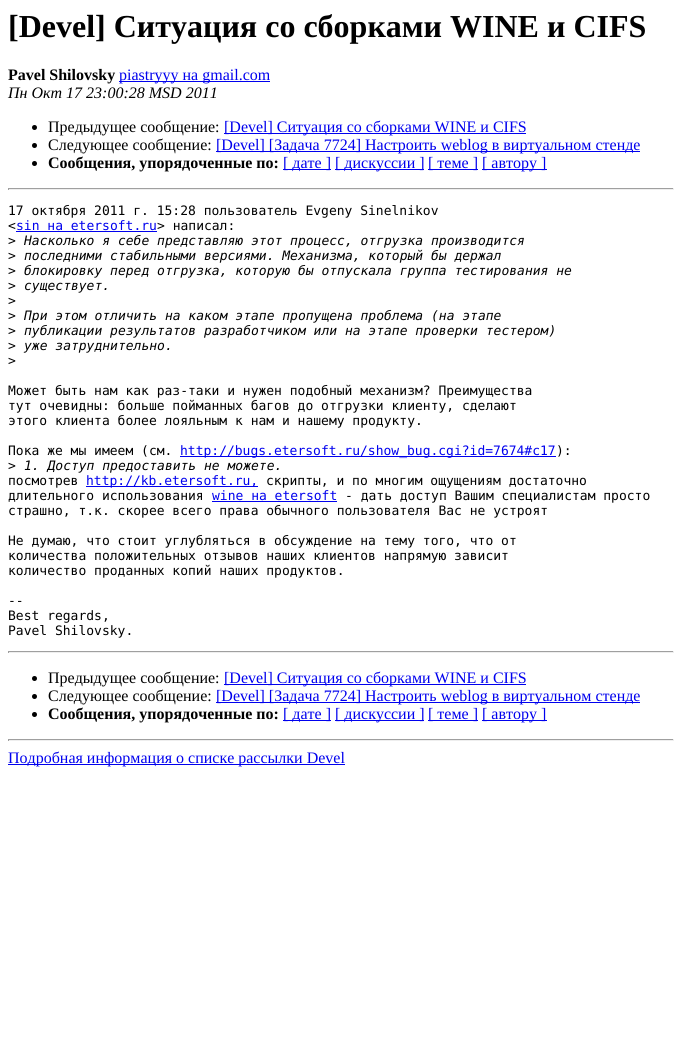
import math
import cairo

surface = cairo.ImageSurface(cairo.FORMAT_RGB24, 682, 1047)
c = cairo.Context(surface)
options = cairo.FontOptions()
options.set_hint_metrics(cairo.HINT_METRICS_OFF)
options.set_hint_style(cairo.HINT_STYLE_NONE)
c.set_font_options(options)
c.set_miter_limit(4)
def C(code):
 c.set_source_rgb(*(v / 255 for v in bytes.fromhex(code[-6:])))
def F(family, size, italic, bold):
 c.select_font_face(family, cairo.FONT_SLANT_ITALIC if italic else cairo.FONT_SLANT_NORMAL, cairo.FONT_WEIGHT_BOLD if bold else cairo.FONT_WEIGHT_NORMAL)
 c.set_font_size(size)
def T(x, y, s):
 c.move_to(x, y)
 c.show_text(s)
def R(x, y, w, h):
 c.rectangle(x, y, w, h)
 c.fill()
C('ffffff')
c.paint()
F('Liberation Serif',32,0,1)
C('000000')
T(8,37,'[Devel] Ситуация со сборками WINE и CIFS')
F('Liberation Serif',16,0,1)
T(8,80,'Pavel Shilovsky')
C('0000ee')
R(119,81,151,1)
F('Liberation Serif',16,0,0)
T(119,80,'piastryyy на gmail.com')
F('Liberation Serif',16,1,0)
C('000000')
T(8,98,'Пн Окт 17 23:00:28 MSD 2011')
c.new_path()
c.arc(34.5,127.5,2.5,0,2 * math.pi)
c.fill()
F('Liberation Serif',16,0,0)
T(48,132,'Предыдущее сообщение:')
C('0000ee')
R(224,133,302,1)
T(224,132,'[Devel] Ситуация со сборками WINE и CIFS')
C('000000')
c.new_path()
c.arc(34.5,145.5,2.5,0,2 * math.pi)
c.fill()
T(48,150,'Следующее сообщение:')
C('0000ee')
R(216,151,424,1)
T(216,150,'[Devel] [Задача 7724] Настроить weblog в виртуальном стенде')
C('000000')
c.new_path()
c.arc(34.5,163.5,2.5,0,2 * math.pi)
c.fill()
F('Liberation Serif',16,0,1)
T(48,168,'Сообщения, упорядоченные по:')
C('0000ee')
R(283,169,48,1)
F('Liberation Serif',16,0,0)
T(283,168,'[ дате ]')
R(335,169,89,1)
T(335,168,'[ дискуссии ]')
R(428,169,50,1)
T(428,168,'[ теме ]')
R(482,169,65,1)
T(482,168,'[ автору ]')
C('9f9f9f')
R(8,188,666,1)
C('eeeeee')
R(673,188,1,2)
R(8,189,666,1)
C('9f9f9f')
R(8,188,1,2)
F('DejaVu Sans Mono',13,0,0)
C('000000')
T(8,215,'17 октября 2011 г. 15:28 пользователь Evgeny Sinelnikov')
T(8,230,'<')
C('0000ee')
T(16,230,'sin на etersoft.ru')
R(16,231,141,1)
C('000000')
T(157,230,'> написал:')
T(8,245,'>')
F('DejaVu Sans Mono',13,1,0)
T(24,245,'Насколько я себе представляю этот процесс, отгрузка производится')
F('DejaVu Sans Mono',13,0,0)
T(8,260,'>')
F('DejaVu Sans Mono',13,1,0)
T(24,260,'последними стабильными версиями. Механизма, который бы держал')
F('DejaVu Sans Mono',13,0,0)
T(8,275,'>')
F('DejaVu Sans Mono',13,1,0)
T(24,275,'блокировку перед отгрузка, которую бы отпускала группа тестирования не')
F('DejaVu Sans Mono',13,0,0)
T(8,290,'>')
F('DejaVu Sans Mono',13,1,0)
T(24,290,'существует.')
F('DejaVu Sans Mono',13,0,0)
T(8,305,'>')
T(8,320,'>')
F('DejaVu Sans Mono',13,1,0)
T(24,320,'При этом отличить на каком этапе пропущена проблема (на этапе')
F('DejaVu Sans Mono',13,0,0)
T(8,335,'>')
F('DejaVu Sans Mono',13,1,0)
T(24,335,'публикации результатов разработчиком или на этапе проверки тестером)')
F('DejaVu Sans Mono',13,0,0)
T(8,350,'>')
F('DejaVu Sans Mono',13,1,0)
T(24,350,'уже затруднительно.')
F('DejaVu Sans Mono',13,0,0)
T(8,365,'>')
T(8,395,'Может быть нам как раз-таки и нужен подобный механизм? Преимущества')
T(8,410,'тут очевидны: больше пойманных багов до отгрузки клиенту, сделают')
T(8,425,'этого клиента более лояльным к нам и нашему продукту.')
T(8,455,'Пока же мы имеем (см.')
C('0000ee')
R(180,456,376,1)
T(180,455,'http://bugs.etersoft.ru/show_bug.cgi?id=7674#c17')
C('000000')
T(556,455,'):')
T(8,470,'>')
F('DejaVu Sans Mono',13,1,0)
T(24,470,'1. Доступ предоставить не можете.')
F('DejaVu Sans Mono',13,0,0)
T(8,485,'посмотрев')
C('0000ee')
R(86,486,172,1)
T(86,485,'http://kb.etersoft.ru,')
C('000000')
T(266,485,'скрипты, и по многим ощущениям достаточно')
T(8,500,'длительного использования')
C('0000ee')
T(212,500,'wine на etersoft')
R(212,501,125,1)
C('000000')
T(345,500,'- дать доступ Вашим специалистам просто')
T(8,515,'страшно, т.к. скорее всего права обычного пользователя Вас не устроят')
T(8,545,'Не думаю, что стоит углубляться в обсуждение на тему того, что от')
T(8,560,'количества положительных отзывов наших клиентов напрямую зависит')
T(8,575,'количество проданных копий наших продуктов.')
T(8,605,'--')
T(8,620,'Best regards,')
T(8,635,'Pavel Shilovsky.')
C('9f9f9f')
R(8,651,666,1)
C('eeeeee')
R(673,651,1,2)
R(8,652,666,1)
C('9f9f9f')
R(8,651,1,2)
C('000000')
c.new_path()
c.arc(34.5,678.5,2.5,0,2 * math.pi)
c.fill()
F('Liberation Serif',16,0,0)
T(48,683,'Предыдущее сообщение:')
C('0000ee')
R(224,684,302,1)
T(224,683,'[Devel] Ситуация со сборками WINE и CIFS')
C('000000')
c.new_path()
c.arc(34.5,696.5,2.5,0,2 * math.pi)
c.fill()
T(48,701,'Следующее сообщение:')
C('0000ee')
R(216,702,424,1)
T(216,701,'[Devel] [Задача 7724] Настроить weblog в виртуальном стенде')
C('000000')
c.new_path()
c.arc(34.5,714.5,2.5,0,2 * math.pi)
c.fill()
F('Liberation Serif',16,0,1)
T(48,719,'Сообщения, упорядоченные по:')
C('0000ee')
R(283,720,48,1)
F('Liberation Serif',16,0,0)
T(283,719,'[ дате ]')
R(335,720,89,1)
T(335,719,'[ дискуссии ]')
R(428,720,50,1)
T(428,719,'[ теме ]')
R(482,720,65,1)
T(482,719,'[ автору ]')
C('9f9f9f')
R(8,739,666,1)
C('eeeeee')
R(673,739,1,2)
R(8,740,666,1)
C('9f9f9f')
R(8,739,1,2)
C('0000ee')
R(8,764,337,1)
T(8,763,'Подробная информация о списке рассылки Devel')
surface.write_to_png('o.png')
